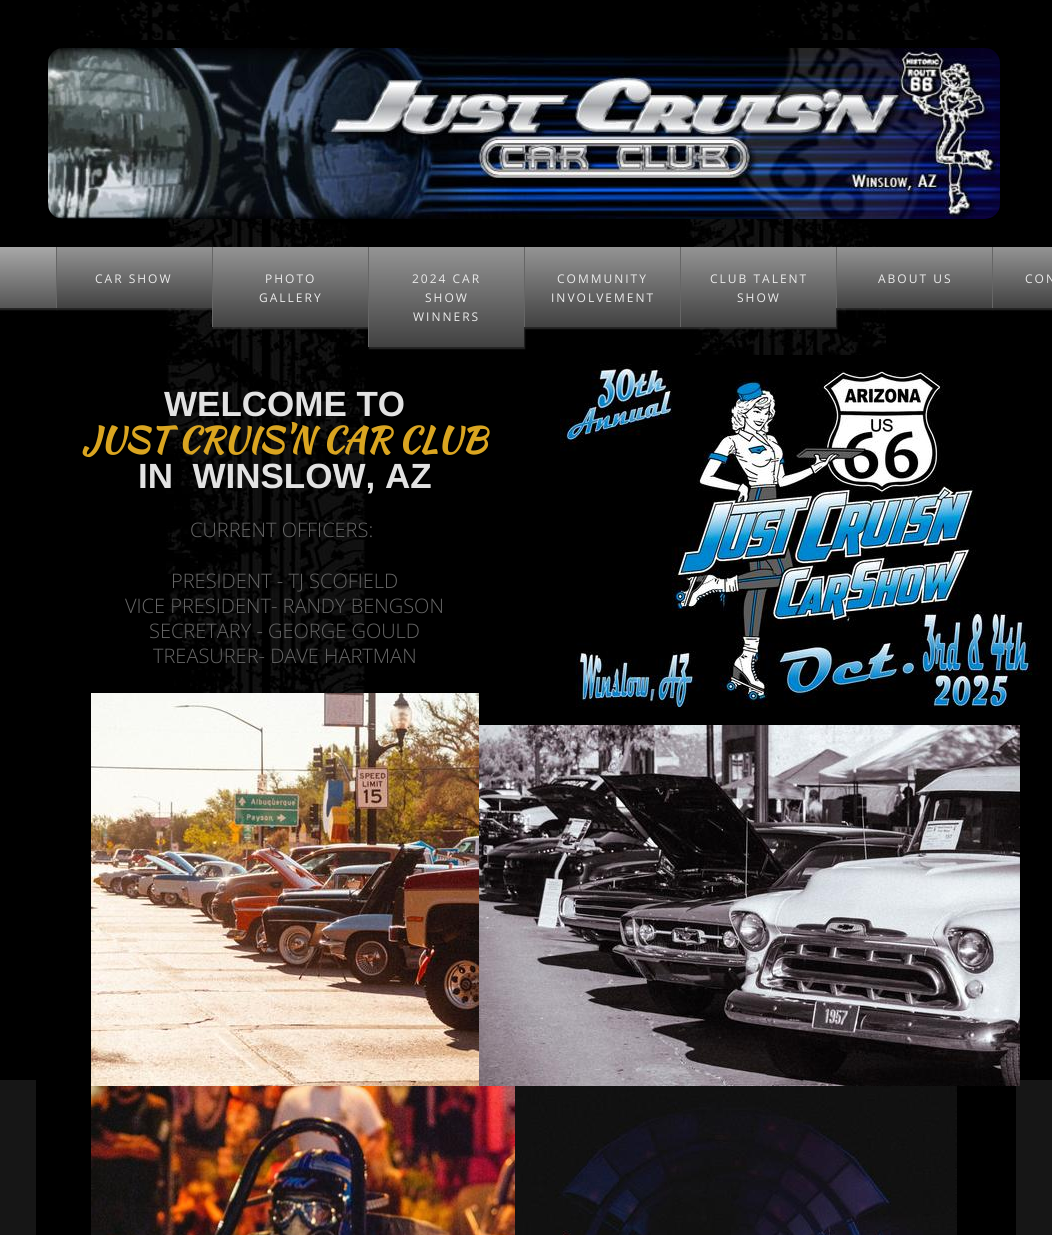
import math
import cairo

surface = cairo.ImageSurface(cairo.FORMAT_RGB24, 1052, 1235)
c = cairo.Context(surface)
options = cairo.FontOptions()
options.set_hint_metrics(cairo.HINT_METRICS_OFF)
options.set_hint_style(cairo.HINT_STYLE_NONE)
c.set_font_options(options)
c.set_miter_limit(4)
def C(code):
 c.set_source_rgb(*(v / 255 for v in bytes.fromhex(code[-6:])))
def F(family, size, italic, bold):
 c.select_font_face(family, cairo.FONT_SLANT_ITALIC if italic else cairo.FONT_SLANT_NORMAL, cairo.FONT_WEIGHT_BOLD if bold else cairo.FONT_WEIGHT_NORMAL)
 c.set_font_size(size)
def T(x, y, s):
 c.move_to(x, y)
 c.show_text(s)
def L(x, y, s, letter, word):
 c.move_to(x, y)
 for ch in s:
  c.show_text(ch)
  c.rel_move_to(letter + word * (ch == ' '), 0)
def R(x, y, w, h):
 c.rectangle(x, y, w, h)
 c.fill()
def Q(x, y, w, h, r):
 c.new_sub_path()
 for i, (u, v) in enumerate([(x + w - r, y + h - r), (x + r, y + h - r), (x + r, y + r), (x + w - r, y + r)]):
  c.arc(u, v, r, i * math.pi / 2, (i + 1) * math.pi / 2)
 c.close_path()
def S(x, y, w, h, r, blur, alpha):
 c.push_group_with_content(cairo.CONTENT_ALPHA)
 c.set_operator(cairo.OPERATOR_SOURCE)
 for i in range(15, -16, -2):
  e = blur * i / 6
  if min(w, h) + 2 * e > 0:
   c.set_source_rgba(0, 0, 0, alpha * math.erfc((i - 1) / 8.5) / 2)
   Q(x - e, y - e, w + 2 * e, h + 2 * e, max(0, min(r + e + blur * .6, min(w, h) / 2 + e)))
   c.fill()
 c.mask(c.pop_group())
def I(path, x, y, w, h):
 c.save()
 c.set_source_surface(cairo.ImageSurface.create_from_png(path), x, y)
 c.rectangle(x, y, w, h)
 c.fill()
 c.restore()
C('161616')
c.paint()
I('1.png',0,0,1052,1080)
C('000000')
R(36,40,980,1195)
I('2.png',48,48,952,171)
I('3.png',166,219,720,479)
C('4e4e4e')
S(-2,249,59,61,0,.5,.48)
gradient = cairo.LinearGradient(-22,247,-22,308)
gradient.add_color_stop_rgba(0,0.659,0.659,0.659,1)
gradient.add_color_stop_rgba(1,0.333,0.333,0.333,1)
c.set_source(gradient)
R(0,247,56,61)
C('4e4e4e')
S(57,249,156,61,0,.5,.48)
gradient = cairo.LinearGradient(135,247,135,308)
gradient.add_color_stop_rgba(0,0.58,0.58,0.58,1)
gradient.add_color_stop_rgba(1,0.255,0.255,0.255,1)
c.set_source(gradient)
R(57,247,155,61)
C('666666')
R(56,247,1,61)
F('Open Sans',12,0,0)
C('eaeaea')
L(95,283,'CAR SHOW',2,0)
C('4e4e4e')
S(213,249,156,80,0,.5,.48)
gradient = cairo.LinearGradient(291,247,291,327)
gradient.add_color_stop_rgba(0,0.58,0.58,0.58,1)
gradient.add_color_stop_rgba(1,0.255,0.255,0.255,1)
c.set_source(gradient)
R(213,247,155,80)
C('666666')
R(212,247,1,80)
C('eaeaea')
L(265,283,'PHOTO',2,0)
L(259,302,'GALLERY',2,0)
C('4e4e4e')
S(369,249,156,100,0,.5,.48)
gradient = cairo.LinearGradient(447,247,447,347)
gradient.add_color_stop_rgba(0,0.58,0.58,0.58,1)
gradient.add_color_stop_rgba(1,0.255,0.255,0.255,1)
c.set_source(gradient)
R(369,247,155,100)
C('666666')
R(368,247,1,100)
C('eaeaea')
L(412,283,'2024 CAR',2,0)
L(425,302,'SHOW',2,0)
L(413,321,'WINNERS',2,0)
C('4e4e4e')
S(525,249,156,80,0,.5,.48)
gradient = cairo.LinearGradient(603,247,603,327)
gradient.add_color_stop_rgba(0,0.58,0.58,0.58,1)
gradient.add_color_stop_rgba(1,0.255,0.255,0.255,1)
c.set_source(gradient)
R(525,247,155,80)
C('666666')
R(524,247,1,80)
C('eaeaea')
L(557,283,'COMMUNITY',2,0)
L(551,302,'INVOLVEMENT',2,0)
C('4e4e4e')
S(681,249,156,80,0,.5,.48)
gradient = cairo.LinearGradient(759,247,759,327)
gradient.add_color_stop_rgba(0,0.58,0.58,0.58,1)
gradient.add_color_stop_rgba(1,0.255,0.255,0.255,1)
c.set_source(gradient)
R(681,247,155,80)
C('666666')
R(680,247,1,80)
C('eaeaea')
L(710,283,'CLUB TALENT',2,0)
L(737,302,'SHOW',2,0)
C('4e4e4e')
S(837,249,156,61,0,.5,.48)
gradient = cairo.LinearGradient(915,247,915,308)
gradient.add_color_stop_rgba(0,0.58,0.58,0.58,1)
gradient.add_color_stop_rgba(1,0.255,0.255,0.255,1)
c.set_source(gradient)
R(837,247,155,61)
C('666666')
R(836,247,1,61)
C('eaeaea')
L(878,283,'ABOUT US',2,0)
C('4e4e4e')
S(993,249,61,61,0,.5,.48)
gradient = cairo.LinearGradient(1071,247,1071,308)
gradient.add_color_stop_rgba(0,0.58,0.58,0.58,1)
gradient.add_color_stop_rgba(1,0.255,0.255,0.255,1)
c.set_source(gradient)
R(993,247,59,61)
C('666666')
R(992,247,1,61)
C('eaeaea')
L(1025,283,'CON',2,0)
F('Liberation Sans',35,0,1)
C('e2e2e2')
T(164,416,'WELCOME TO')
F('Kaushan Script',35,0,1)
C('daa520')
T(82,452,'JUST CRUIS\'N CAR CLUB')
F('Liberation Sans',35,0,1)
C('e2e2e2')
T(138,488,'IN  WINSLOW, AZ')
F('Open Sans Light',20,0,0)
C('666666')
T(190,537,'CURRENT OFFICERS:')
I('5.png',174,584,386,10)
T(171,588,'PRESIDENT - TJ SCOFIELD')
T(125,613,'VICE PRESIDENT- RANDY BENGSON')
T(149,638,'SECRETARY - GEORGE GOULD')
T(153,663,'TREASURER- DAVE HARTMAN')
I('4.png',560,355,480,353)
I('6.png',91,693,388,393)
I('7.png',479,725,541,361)
I('8.png',91,1086,424,149)
I('9.png',515,1086,442,149)
surface.write_to_png('o.png')
